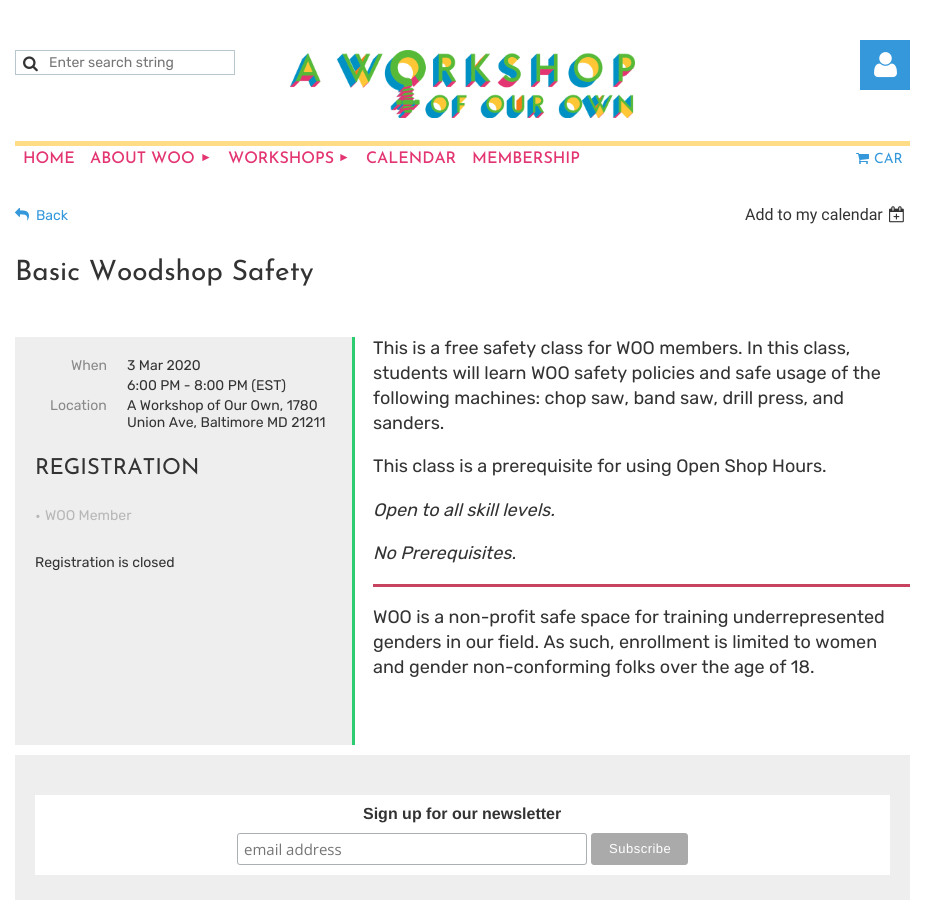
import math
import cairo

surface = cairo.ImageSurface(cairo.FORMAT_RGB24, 925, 900)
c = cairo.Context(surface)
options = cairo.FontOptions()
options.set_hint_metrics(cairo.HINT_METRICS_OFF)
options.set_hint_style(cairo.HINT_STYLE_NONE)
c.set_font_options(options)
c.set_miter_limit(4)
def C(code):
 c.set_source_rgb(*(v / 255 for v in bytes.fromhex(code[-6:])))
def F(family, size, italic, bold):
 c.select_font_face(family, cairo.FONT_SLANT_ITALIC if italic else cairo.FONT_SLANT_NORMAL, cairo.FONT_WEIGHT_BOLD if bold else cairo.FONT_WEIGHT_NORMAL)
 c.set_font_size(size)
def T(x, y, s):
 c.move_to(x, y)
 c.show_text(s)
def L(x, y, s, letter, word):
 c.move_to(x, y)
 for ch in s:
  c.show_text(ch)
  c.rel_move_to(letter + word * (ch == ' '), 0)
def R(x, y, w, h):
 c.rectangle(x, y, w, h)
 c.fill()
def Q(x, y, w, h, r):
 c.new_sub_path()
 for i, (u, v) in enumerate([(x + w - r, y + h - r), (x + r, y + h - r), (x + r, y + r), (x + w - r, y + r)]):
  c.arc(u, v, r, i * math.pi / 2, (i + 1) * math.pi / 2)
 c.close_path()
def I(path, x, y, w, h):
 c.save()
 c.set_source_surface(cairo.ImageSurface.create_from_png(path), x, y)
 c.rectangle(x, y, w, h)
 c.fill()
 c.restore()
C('ffffff')
c.paint()
c.rectangle(15.5,50.5,219,24)
C('b8c6cd')
c.set_line_width(1)
c.stroke()
I('1.png',23,56,15,16)
F('Rubik',14,0,0)
C('757575')
T(49,67,'Enter search string')
I('2.png',290,50,345,68)
C('3498db')
R(860,40,50,50)
I('3.png',874,52,23,26)
C('ffdc85')
R(15,141,895,5)
F('Josefin Sans Medium',16,0,0)
C('e33572')
T(23,163,'HOME')
T(90,163,'ABOUT WOO')
F('Liberation Sans',12,0,0)
T(200,161,'►')
F('Josefin Sans Medium',16,0,0)
T(228,163,'WORKSHOPS')
F('Liberation Sans',12,0,0)
T(338,161,'►')
F('Josefin Sans Medium',16,0,0)
T(366,163,'CALENDAR')
T(472,163,'MEMBERSHIP')
I('4.png',856,153,13,11)
F('Josefin Sans',14,0,0)
C('3498db')
T(874,163,'CAR')
I('5.png',15,207,14,14)
F('Rubik',14,0,0)
T(36,220,'Back')
F('Roboto',16,0,0)
C('333333')
T(745,220,'Add to my calendar')
I('6.png',889,206,15,17)
F('Josefin Sans',28,0,0)
T(15,280,'Basic Woodshop Safety')
C('eeeeee')
R(15,337,337,408)
C('2ecc71')
R(352,337,3,408)
F('Rubik',14,0,0)
C('898989')
T(71,370,'When')
C('333333')
T(127,370,'3 Mar 2020')
T(127,390,'6:00 PM - 8:00 PM (EST)')
C('898989')
T(50,410,'Location')
C('333333')
T(127,410,'A Workshop of Our Own, 1780')
T(127,427,'Union Ave, Baltimore MD 21211')
F('Josefin Sans',22,0,0)
T(35,474,'REGISTRATION')
F('Rubik',15,0,0)
C('b7b7b7')
T(35,521,'•')
F('Rubik',14,0,0)
T(45,520,'WOO Member')
C('333333')
T(35,567,'Registration is closed')
F('Rubik',18,0,0)
T(373,354,'This is a free safety class for WOO members. In this class,')
T(373,379,'students will learn WOO safety policies and safe usage of the')
T(373,404,'following machines: chop saw, band saw, drill press, and')
T(373,429,'sanders.')
T(373,472,'This class is a prerequisite for using Open Shop Hours.')
F('Rubik',18,1,0)
T(373,516,'Open to all skill levels.')
T(373,559,'No Prerequisites.')
C('c8435f')
R(373,584,537,3)
F('Rubik',18,0,0)
C('333333')
T(373,623,'WOO is a non-profit safe space for training underrepresented')
T(373,648,'genders in our field. As such, enrollment is limited to women')
T(373,673,'and gender non-conforming folks over the age of 18.')
C('eeeeee')
R(15,755,895,145)
C('ffffff')
R(35,795,855,80)
F('Liberation Sans',16,0,1)
C('333333')
T(363,819,'Sign up for our newsletter')
Q(237.5,833.5,349,31,2.5)
C('abb0b2')
c.stroke()
F('Open Sans',15,0,0)
C('757575')
T(244,855,'email address')
C('aaaaaa')
Q(591,833,97,32,3)
c.fill()
F('Liberation Sans',13,0,0)
C('ffffff')
L(609,853,'Subscribe',.5,0)
surface.write_to_png('o.png')
